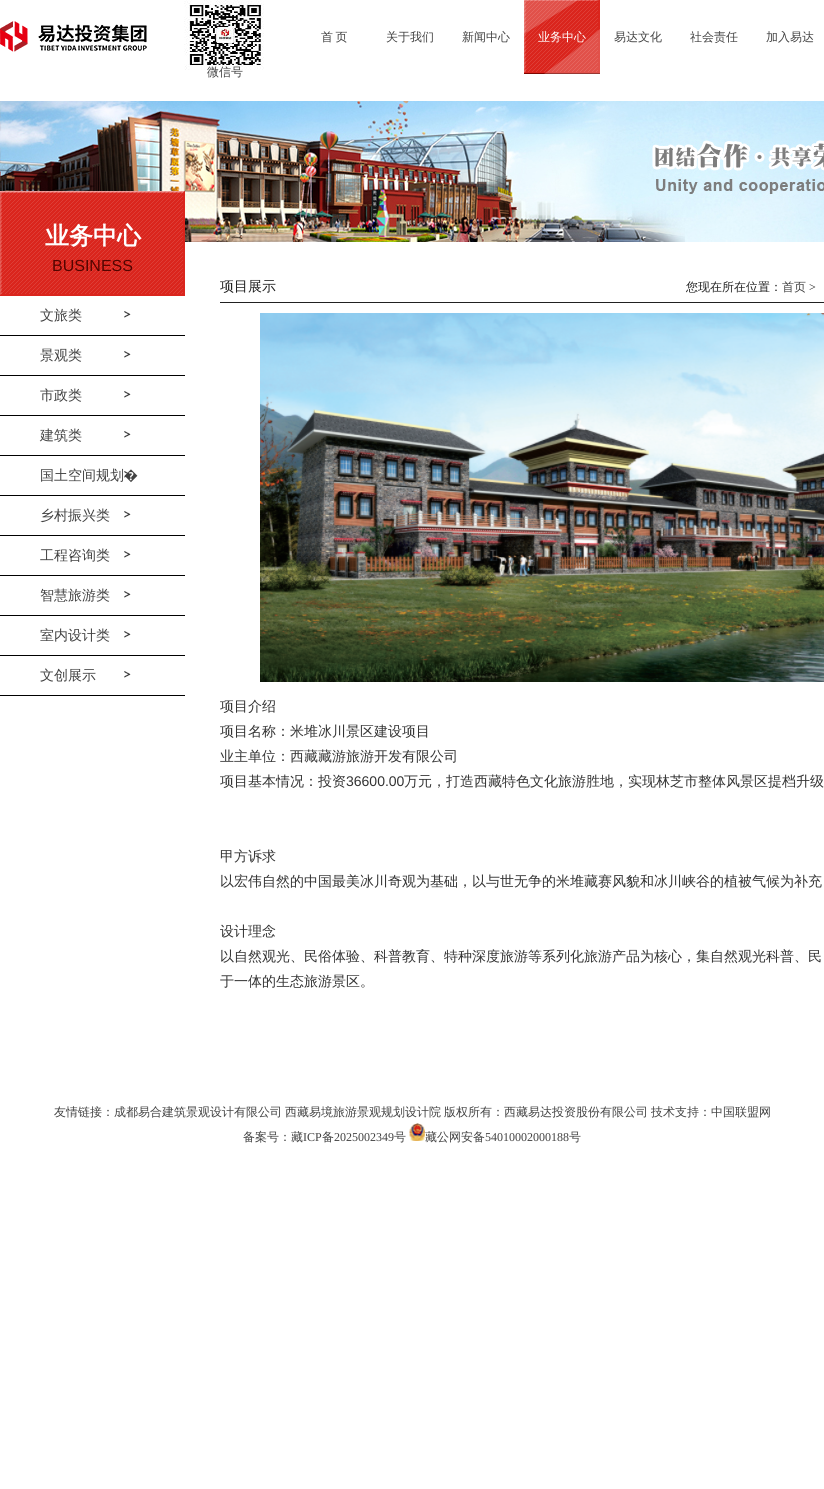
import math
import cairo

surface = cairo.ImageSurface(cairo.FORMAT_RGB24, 824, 1489)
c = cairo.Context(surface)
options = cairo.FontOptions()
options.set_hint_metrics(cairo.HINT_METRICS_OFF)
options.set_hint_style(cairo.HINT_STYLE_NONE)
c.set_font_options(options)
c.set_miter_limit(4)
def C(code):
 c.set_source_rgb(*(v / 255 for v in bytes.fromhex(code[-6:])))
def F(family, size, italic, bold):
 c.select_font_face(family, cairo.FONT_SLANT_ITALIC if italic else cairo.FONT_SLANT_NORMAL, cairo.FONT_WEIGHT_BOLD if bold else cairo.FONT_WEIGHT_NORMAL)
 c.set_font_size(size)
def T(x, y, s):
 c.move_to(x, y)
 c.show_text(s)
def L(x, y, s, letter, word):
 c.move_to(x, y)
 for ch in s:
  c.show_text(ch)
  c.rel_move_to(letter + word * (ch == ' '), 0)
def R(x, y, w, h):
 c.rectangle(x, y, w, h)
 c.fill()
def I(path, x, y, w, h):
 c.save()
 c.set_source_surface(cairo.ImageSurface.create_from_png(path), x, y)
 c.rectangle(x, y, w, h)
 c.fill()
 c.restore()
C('ffffff')
c.paint()
F('WenQuanYi Zen Hei Medium',12,0,0)
C('424242')
L(321,41,'首 页',0,-1)
T(386,41,'关于我们')
T(462,41,'新闻中心')
I('1.png',524,0,76,74)
C('ffffff')
T(538,41,'业务中心')
C('424242')
T(614,41,'易达文化')
T(690,41,'社会责任')
T(766,41,'加入易达')
I('2.png',0,21,147,31)
I('3.png',184,0,80,70)
T(207,76,'微信号')
I('4.png',0,101,824,141)
I('5.png',0,191,185,105)
F('WenQuanYi Zen Hei',24,0,1)
C('ffffff')
T(45,244,'业务中心')
F('Liberation Sans',16,0,0)
C('530400')
T(52,271,'BUSINESS')
I('6.png',124,311,7,7)
C('000000')
R(0,335,185,1)
F('WenQuanYi Zen Hei Medium',14,0,0)
C('424242')
T(40,320,'文旅类')
I('6.png',124,351,7,7)
C('000000')
R(0,375,185,1)
C('424242')
T(40,360,'景观类')
I('6.png',124,391,7,7)
C('000000')
R(0,415,185,1)
C('424242')
T(40,400,'市政类')
I('6.png',124,431,7,7)
C('000000')
R(0,455,185,1)
C('424242')
T(40,440,'建筑类')
I('6.png',124,471,7,7)
C('000000')
R(0,495,185,1)
C('424242')
T(40,480,'国土空间规划')
F('Noto Sans',14,0,0)
T(124,480,'�')
I('6.png',124,511,7,7)
C('000000')
R(0,535,185,1)
F('WenQuanYi Zen Hei Medium',14,0,0)
C('424242')
T(40,520,'乡村振兴类')
I('6.png',124,551,7,7)
C('000000')
R(0,575,185,1)
C('424242')
T(40,560,'工程咨询类')
I('6.png',124,591,7,7)
C('000000')
R(0,615,185,1)
C('424242')
T(40,600,'智慧旅游类')
I('6.png',124,631,7,7)
C('000000')
R(0,655,185,1)
C('424242')
T(40,640,'室内设计类')
I('6.png',124,671,7,7)
C('000000')
R(0,695,185,1)
C('424242')
T(40,680,'文创展示')
C('212121')
R(220,302,604,1)
T(220,291,'项目展示')
F('WenQuanYi Zen Hei Medium',12,0,0)
T(686,291,'您现在所在位置：')
C('424242')
T(782,291,'首页')
F('Liberation Serif',12,0,0)
C('212121')
T(809,291,'>')
I('7.png',260,313,564,369)
F('WenQuanYi Zen Hei Medium',14,0,0)
C('333333')
T(220,711,'项目介绍')
T(220,736,'项目名称：米堆冰川景区建设项目')
T(220,761,'业主单位：西藏藏游旅游开发有限公司')
T(220,786,'项目基本情况：投资')
F('Liberation Sans',14,0,0)
T(346,786,'36600.00')
F('WenQuanYi Zen Hei Medium',14,0,0)
T(404,786,'万元，打造西藏特色文化旅游胜地，实现林芝市整体风景区提档升级')
T(220,861,'甲方诉求')
T(220,886,'以宏伟自然的中国最美冰川奇观为基础，以与世无争的米堆藏赛风貌和冰川峡谷的植被气候为补充')
T(220,936,'设计理念')
T(220,961,'以自然观光、民俗体验、科普教育、特种深度旅游等系列化旅游产品为核心，集自然观光科普、民')
T(220,986,'于一体的生态旅游景区。')
F('WenQuanYi Zen Hei Medium',12,0,0)
C('424242')
T(54,1116,'友情链接：成都易合建筑景观设计有限公司')
T(285,1116,'西藏易境旅游景观规划设计院')
T(444,1116,'版权所有：西藏易达投资股份有限公司')
T(651,1116,'技术支持：中国联盟网')
T(243,1141,'备案号：藏')
F('Liberation Serif',12,0,0)
T(303,1141,'ICP')
F('WenQuanYi Zen Hei Medium',12,0,0)
T(322,1141,'备')
F('Liberation Serif',12,0,0)
T(334,1141,'2025002349')
F('WenQuanYi Zen Hei Medium',12,0,0)
T(394,1141,'号')
I('8.png',409,1123,16,18)
T(425,1141,'藏公网安备')
F('Liberation Serif',12,0,0)
T(485,1141,'54010002000188')
F('WenQuanYi Zen Hei Medium',12,0,0)
T(569,1141,'号')
surface.write_to_png('o.png')
